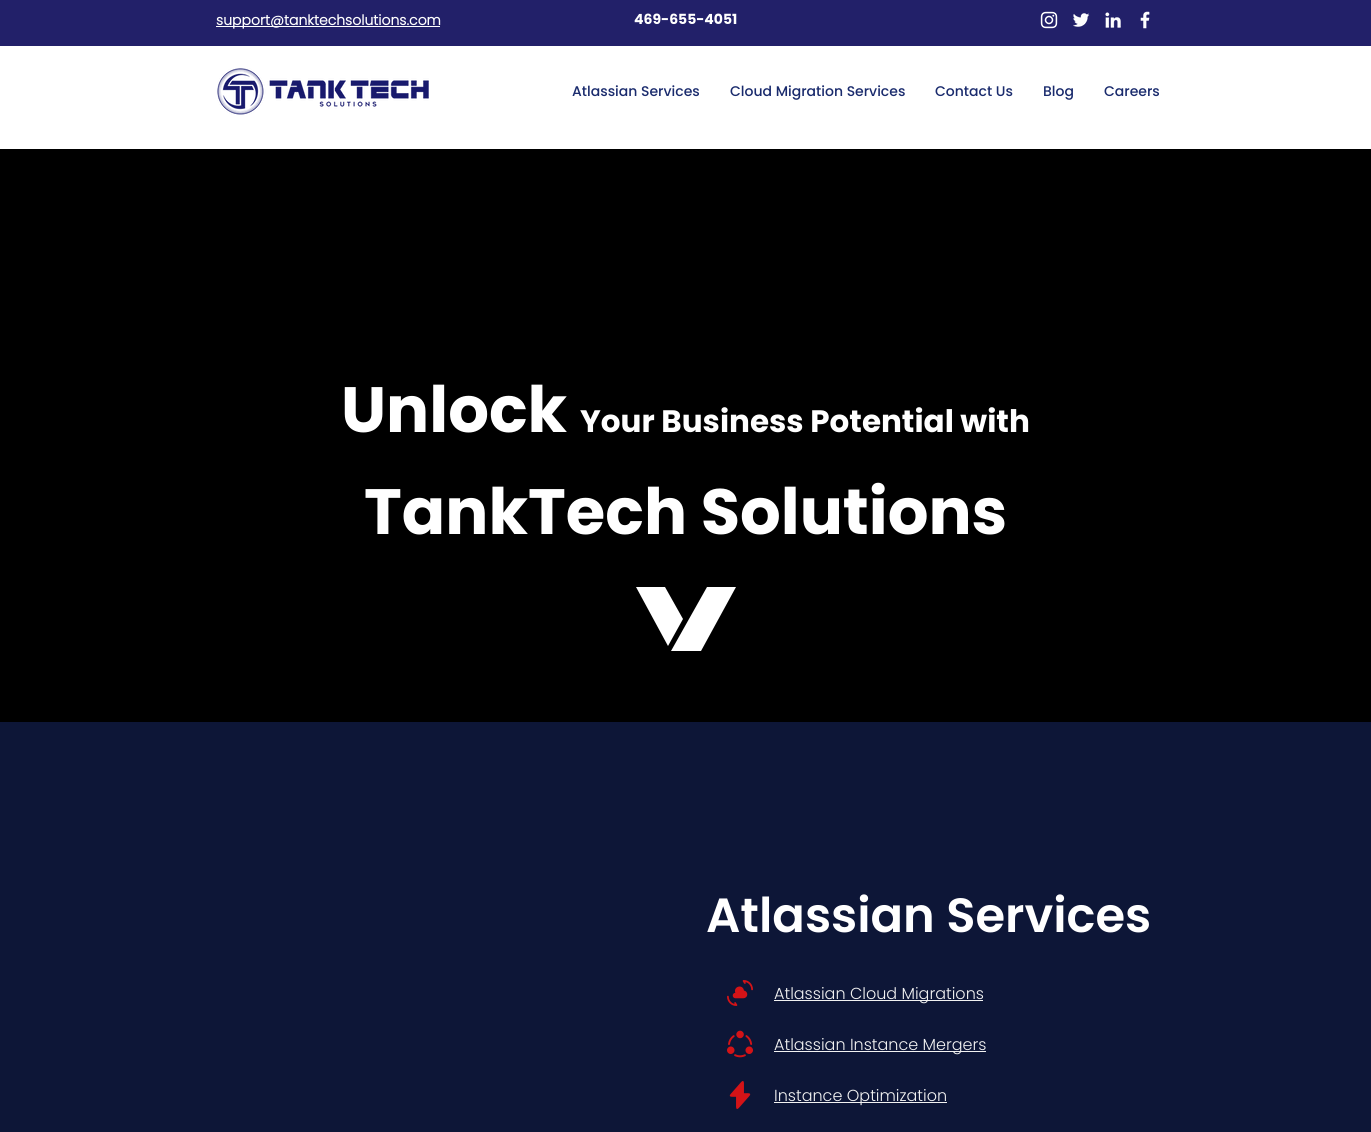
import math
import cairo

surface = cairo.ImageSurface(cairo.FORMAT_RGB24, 1371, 1132)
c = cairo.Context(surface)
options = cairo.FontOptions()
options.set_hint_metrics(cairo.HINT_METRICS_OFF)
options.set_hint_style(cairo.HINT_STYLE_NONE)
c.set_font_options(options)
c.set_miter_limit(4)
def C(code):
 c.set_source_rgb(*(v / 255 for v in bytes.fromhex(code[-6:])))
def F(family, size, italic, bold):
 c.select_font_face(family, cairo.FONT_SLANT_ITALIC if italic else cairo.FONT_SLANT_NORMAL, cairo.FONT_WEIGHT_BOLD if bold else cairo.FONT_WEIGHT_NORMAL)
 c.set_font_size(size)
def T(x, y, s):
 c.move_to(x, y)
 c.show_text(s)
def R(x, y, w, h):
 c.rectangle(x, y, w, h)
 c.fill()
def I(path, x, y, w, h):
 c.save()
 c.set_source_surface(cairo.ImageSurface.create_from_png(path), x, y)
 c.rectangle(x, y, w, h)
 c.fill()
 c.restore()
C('ffffff')
c.paint()
C('222069')
R(0,0,1371,46)
C('ffffff')
R(216,26,224,1)
F('Poppins',14,0,1)
T(216,25,'support@tanktechsolutions.com')
F('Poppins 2',14,0,1)
T(634,24,'469-655-4051')
I('1.png',1040,11,18,18)
I('2.png',1073,13,17,14)
I('3.png',1105,12,16,16)
I('4.png',1140,11,10,18)
I('5.png',217,68,212,47)
F('Poppins Medium',14,0,0)
C('1a2b6d')
T(572,96,'Atlassian Services')
T(730,96,'Cloud Migration Services')
T(935,96,'Contact Us')
T(1043,96,'Blog')
T(1104,96,'Careers')
C('000000')
R(0,149,1371,573)
F('Poppins 2',64,0,1)
C('ffffff')
T(341,432,'Unlock')
F('Poppins 2',31,0,1)
T(580,432,'Your Business Potential with')
F('Poppins 2',64,0,1)
T(364,534,'TankTech Solutions')
c.new_path()
c.move_to(701,651)
c.line_to(671,651)
c.line_to(707,587)
c.line_to(736,587)
c.close_path()
c.fill()
c.new_path()
c.move_to(636,587)
c.line_to(665,587)
c.line_to(683,619)
c.line_to(668,646)
c.close_path()
c.fill()
C('0d1637')
R(0,722,1371,410)
F('Poppins SemiBold',48,0,0)
C('ffffff')
T(706,932,'Atlassian Services')
I('6.png',727,980,26,26)
C('f2f2f2')
R(774,1000,209,1)
F('Poppins Light',16,0,0)
T(774,999,'Atlassian Cloud Migrations')
I('7.png',727,1030,26,28)
R(774,1051,212,1)
T(774,1050,'Atlassian Instance Mergers')
I('8.png',729,1081,22,28)
R(774,1102,173,1)
T(774,1101,'Instance Optimization')
surface.write_to_png('o.png')
